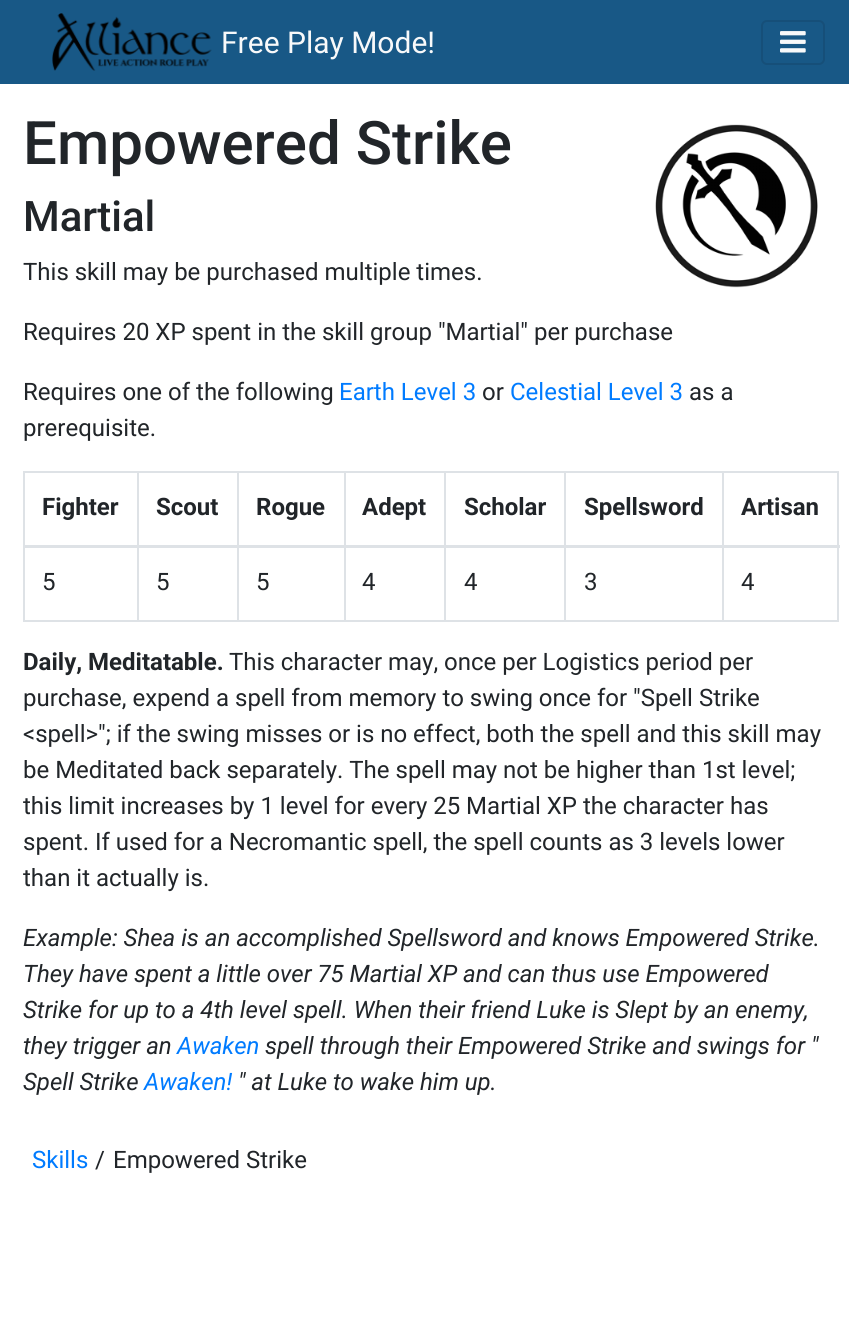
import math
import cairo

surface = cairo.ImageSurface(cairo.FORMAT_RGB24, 849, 1338)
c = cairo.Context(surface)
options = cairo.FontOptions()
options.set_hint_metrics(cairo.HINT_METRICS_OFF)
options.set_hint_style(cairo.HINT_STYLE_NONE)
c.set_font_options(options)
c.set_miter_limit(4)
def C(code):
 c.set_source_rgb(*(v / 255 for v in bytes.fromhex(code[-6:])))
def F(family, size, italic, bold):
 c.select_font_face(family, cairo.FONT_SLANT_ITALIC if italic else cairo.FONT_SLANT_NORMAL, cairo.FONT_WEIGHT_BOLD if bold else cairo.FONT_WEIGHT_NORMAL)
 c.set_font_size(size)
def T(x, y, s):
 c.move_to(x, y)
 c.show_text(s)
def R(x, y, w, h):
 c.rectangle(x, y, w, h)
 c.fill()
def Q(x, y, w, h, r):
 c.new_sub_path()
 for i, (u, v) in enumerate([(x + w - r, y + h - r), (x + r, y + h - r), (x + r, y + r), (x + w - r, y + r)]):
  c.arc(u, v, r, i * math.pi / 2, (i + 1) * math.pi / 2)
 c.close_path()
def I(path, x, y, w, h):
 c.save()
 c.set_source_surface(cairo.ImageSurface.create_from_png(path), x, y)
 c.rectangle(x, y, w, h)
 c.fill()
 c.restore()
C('ffffff')
c.paint()
C('185886')
R(0,0,849,84)
I('1.png',52,13,160,58)
F('Roboto',30,0,0)
C('f8f9fa')
T(221,53,'Free Play Mode!')
Q(762,21,62,43,5)
C('164f79')
c.stroke()
I('2.png',780,31,26,22)
F('Roboto Medium',60,0,0)
C('212529')
T(23,164,'Empowered Strike')
I('3.png',655,124,163,164)
F('Roboto Medium',42,0,0)
T(23,231,'Martial')
F('Roboto',24,0,0)
T(23,280,'This skill may be purchased multiple times.')
T(23,340,'Requires 20 XP spent in the skill group "Martial" per purchase')
T(23,400,'Requires one of the following')
C('007bff')
T(339,400,'Earth Level 3')
C('212529')
T(482,400,'or')
C('007bff')
T(510,400,'Celestial Level 3')
C('212529')
T(689,400,'as a')
T(23,436,'prerequisite.')
C('dee2e6')
R(23,471,816,2)
R(837,471,2,150)
R(23,620,816,2)
R(23,471,2,150)
F('Roboto',24,0,1)
C('212529')
T(42,515,'Fighter')
T(156,515,'Scout')
T(256,515,'Rogue')
T(362,515,'Adept')
T(464,515,'Scholar')
T(584,515,'Spellsword')
C('dee2e6')
R(137,471,2,150)
R(237,471,2,150)
R(344,471,2,150)
R(444,471,2,150)
R(564,471,2,150)
R(722,471,2,150)
R(23,545,817,3)
C('212529')
T(741,515,'Artisan')
F('Roboto',24,0,0)
T(42,590,'5')
T(156,590,'5')
T(256,590,'5')
T(362,590,'4')
T(464,590,'4')
T(584,590,'3')
T(741,590,'4')
F('Roboto',24,0,1)
T(23,670,'Daily, Meditatable.')
F('Roboto',24,0,0)
T(229,670,'This character may, once per Logistics period per')
T(23,706,'purchase, expend a spell from memory to swing once for "Spell Strike')
T(23,742,'<spell>"; if the swing misses or is no effect, both the spell and this skill may')
T(23,778,'be Meditated back separately. The spell may not be higher than 1st level;')
T(23,814,'this limit increases by 1 level for every 25 Martial XP the character has')
T(23,850,'spent. If used for a Necromantic spell, the spell counts as 3 levels lower')
T(23,886,'than it actually is.')
F('Roboto',24,1,0)
T(23,946,'Example: Shea is an accomplished Spellsword and knows Empowered Strike.')
T(23,982,'They have spent a little over 75 Martial XP and can thus use Empowered')
T(23,1018,'Strike for up to a 4th level spell. When their friend Luke is Slept by an enemy,')
T(23,1054,'they trigger an')
C('007bff')
T(177,1054,'Awaken')
C('212529')
T(265,1054,'spell through their Empowered Strike and swings for "')
T(23,1090,'Spell Strike')
C('007bff')
T(144,1090,'Awaken!')
C('212529')
T(238,1090,'" at Luke to wake him up.')
F('Roboto',24,0,0)
C('007bff')
T(32,1168,'Skills')
C('212529')
T(95,1168,'/')
T(113,1168,'Empowered Strike')
surface.write_to_png('o.png')
